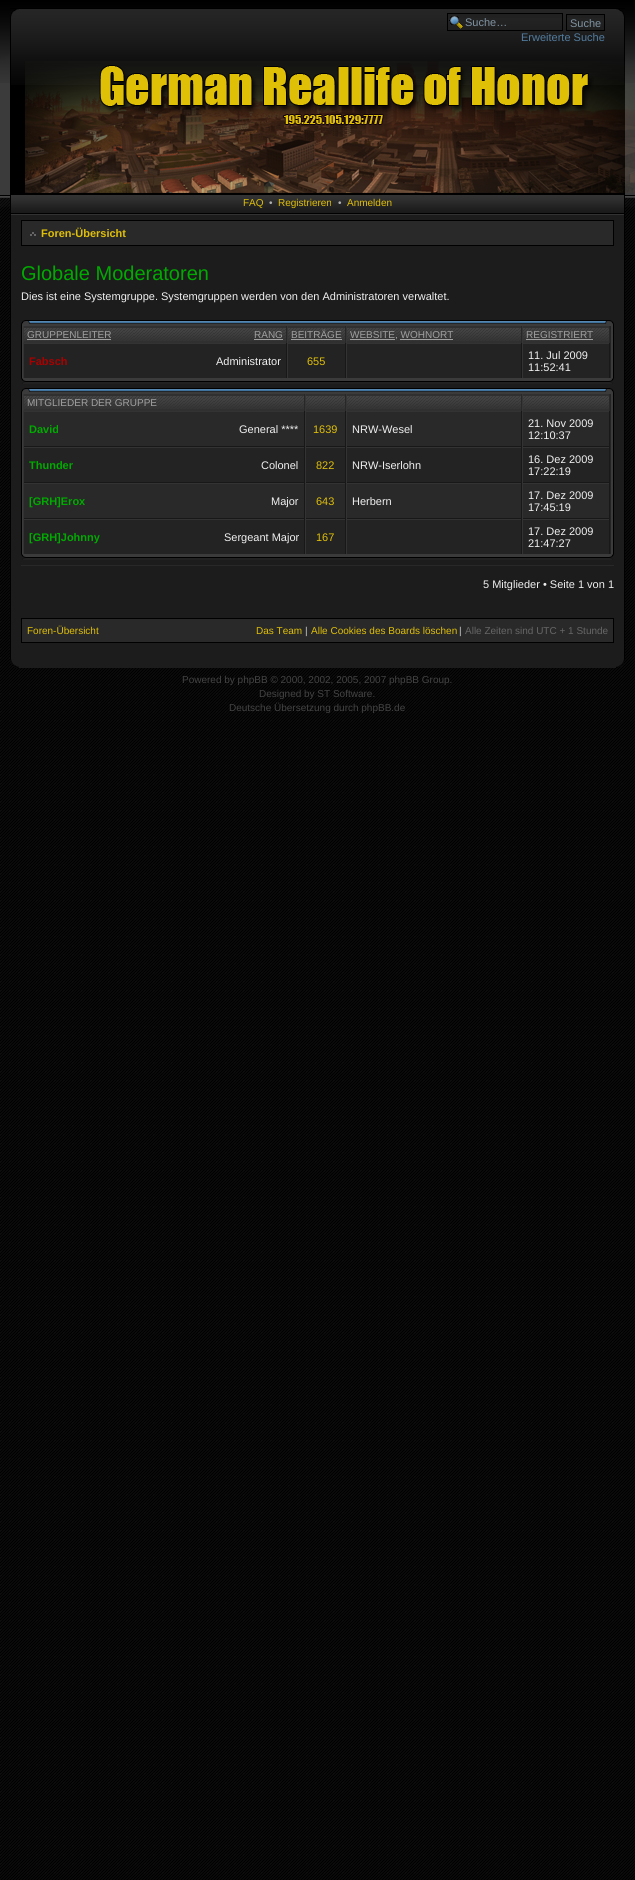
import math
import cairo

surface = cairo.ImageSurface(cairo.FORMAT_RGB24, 635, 1880)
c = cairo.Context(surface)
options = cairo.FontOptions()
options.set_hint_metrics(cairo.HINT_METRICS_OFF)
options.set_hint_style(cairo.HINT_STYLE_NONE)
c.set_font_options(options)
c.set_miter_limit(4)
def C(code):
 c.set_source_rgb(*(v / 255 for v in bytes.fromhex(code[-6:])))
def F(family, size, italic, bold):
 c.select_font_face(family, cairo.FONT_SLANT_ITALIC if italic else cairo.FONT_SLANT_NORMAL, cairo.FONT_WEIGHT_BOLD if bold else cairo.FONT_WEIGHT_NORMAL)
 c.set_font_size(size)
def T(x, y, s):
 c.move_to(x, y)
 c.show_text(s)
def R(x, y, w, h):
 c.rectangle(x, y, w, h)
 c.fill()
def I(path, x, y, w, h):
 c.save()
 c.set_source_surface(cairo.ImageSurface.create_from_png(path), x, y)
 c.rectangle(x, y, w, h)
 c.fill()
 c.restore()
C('ffffff')
c.paint()
I('1.png',0,720,635,1160)
I('2.png',0,207,635,513)
C('3b3b3b')
R(0,83,635,112)
I('3.png',0,0,635,83)
C('000000')
R(10,8,615,187)
I('4.png',11,9,613,76)
I('5.png',10,9,9,76)
I('6.png',616,9,9,76)
C('212121')
R(448,14,114,4)
I('7.png',449,16,14,13)
c.rectangle(447.5,13.5,115,17)
C('000000')
c.set_line_width(1)
c.stroke()
F('Liberation Sans',11,0,0)
C('8093a2')
T(465,26,'Suche…')
C('212121')
R(567,15,37,3)
c.rectangle(566.5,14.5,38,16)
C('000000')
c.stroke()
C('8093a2')
T(570,27,'Suche')
C('527c9f')
T(521,41,'Erweiterte Suche')
I('8.png',25,61,610,132)
I('9.png',0,195,635,12)
C('1c1c1c')
R(11,215,613,444)
I('10.png',11,195,613,20)
C('000000')
R(624,195,1,464)
R(10,195,1,464)
F('Liberation Sans',10,0,0)
C('e0bf07')
T(243,206,'FAQ')
C('b0b0b0')
T(269,206,'•')
C('e0bf07')
T(278,206,'Registrieren')
C('b0b0b0')
T(338,206,'•')
C('e0bf07')
T(347,206,'Anmelden')
C('292929')
c.rectangle(21.5,220.5,592,25)
c.fill_preserve()
C('000000')
c.stroke()
I('11.png',30,232,6,4)
F('Liberation Sans',11,0,1)
C('e0bf07')
T(41,237,'Foren-Übersicht')
F('Liberation Sans',20,0,0)
C('00aa00')
T(21,280,'Globale Moderatoren')
F('Liberation Sans',11,0,0)
C('f0f0f0')
T(21,300,'Dies ist eine Systemgruppe. Systemgruppen werden von den Administratoren verwaltet.')
I('12.png',31,320,573,6)
I('13.png',21,320,10,6)
I('14.png',604,320,10,6)
C('3b3b3b')
R(22,326,591,52)
C('000000')
R(613,326,1,53)
R(21,326,1,53)
C('232323')
R(610,326,1,52)
C('303030')
R(24,326,262,17)
I('15.png',24,328,262,13)
C('282828')
R(286,326,1,17)
C('363636')
R(23,326,1,17)
F('Liberation Sans',10,0,0)
C('a0a0a0')
T(27,338,'GRUPPENLEITER')
R(27,339,84,1)
T(254,338,'RANG')
R(254,339,29,1)
C('303030')
R(288,326,57,17)
I('16.png',288,328,57,13)
C('282828')
R(345,326,1,17)
C('363636')
R(287,326,1,17)
C('a0a0a0')
T(291,338,'BEITRÄGE')
R(291,339,51,1)
C('303030')
R(347,326,174,17)
I('17.png',347,328,174,13)
C('282828')
R(521,326,1,17)
C('363636')
R(346,326,1,17)
C('a0a0a0')
R(350,339,45,1)
T(350,338,'WEBSITE, WOHNORT')
R(400,339,53,1)
C('303030')
R(523,326,86,17)
I('18.png',523,328,86,13)
C('282828')
R(609,326,1,17)
C('363636')
R(522,326,1,17)
C('a0a0a0')
T(526,338,'REGISTRIERT')
R(526,339,67,1)
C('232323')
R(24,344,585,34)
C('333333')
R(23,343,587,1)
C('181818')
R(286,343,1,36)
C('333333')
R(23,343,1,36)
F('Liberation Sans',11,0,1)
C('aa0000')
T(29,365,'Fabsch')
F('Liberation Sans',11,0,0)
C('f0f0f0')
T(216,365,'Administrator')
C('181818')
R(345,343,1,36)
C('333333')
R(287,343,1,36)
C('e0bf07')
T(307,365,'655')
C('181818')
R(521,343,1,36)
C('333333')
R(346,343,1,36)
C('181818')
R(609,343,1,36)
C('333333')
R(522,343,1,36)
C('f0f0f0')
T(528,359,'11. Jul 2009')
T(528,371,'11:52:41')
I('19.png',26,378,583,6)
I('20.png',21,378,5,6)
I('21.png',609,378,5,6)
I('12.png',31,388,573,6)
I('13.png',21,388,10,6)
I('14.png',604,388,10,6)
C('3b3b3b')
R(22,394,591,160)
C('000000')
R(613,394,1,161)
R(21,394,1,161)
C('232323')
R(610,394,1,160)
C('303030')
R(24,394,280,17)
I('22.png',24,396,280,13)
C('282828')
R(304,394,1,17)
C('363636')
R(23,394,1,17)
F('Liberation Sans',10,0,0)
C('a0a0a0')
T(27,406,'MITGLIEDER DER GRUPPE')
C('303030')
R(306,394,39,17)
I('23.png',306,396,39,13)
C('282828')
R(345,394,1,17)
C('363636')
R(305,394,1,17)
C('303030')
R(347,394,174,17)
I('17.png',347,396,174,13)
C('282828')
R(521,394,1,17)
C('363636')
R(346,394,1,17)
C('303030')
R(523,394,86,17)
I('18.png',523,396,86,13)
C('282828')
R(609,394,1,17)
C('363636')
R(522,394,1,17)
C('292929')
R(24,412,585,34)
C('333333')
R(23,411,587,1)
C('181818')
R(304,411,1,36)
R(23,446,282,1)
C('333333')
R(23,411,1,36)
F('Liberation Sans',11,0,1)
C('00aa00')
T(29,433,'David')
F('Liberation Sans',11,0,0)
C('f0f0f0')
T(239,433,'General ****')
C('181818')
R(345,411,1,36)
R(305,446,41,1)
C('333333')
R(305,411,1,36)
C('e0bf07')
T(313,433,'1639')
C('181818')
R(521,411,1,36)
R(346,446,176,1)
C('333333')
R(346,411,1,36)
C('f0f0f0')
T(352,433,'NRW-Wesel')
C('181818')
R(609,411,1,36)
R(522,446,88,1)
C('333333')
R(522,411,1,36)
C('f0f0f0')
T(528,427,'21. Nov 2009')
T(528,439,'12:10:37')
C('232323')
R(24,448,585,34)
C('333333')
R(23,447,587,1)
C('181818')
R(304,447,1,36)
R(23,482,282,1)
C('333333')
R(23,447,1,36)
F('Liberation Sans',11,0,1)
C('00aa00')
T(29,469,'Thunder')
F('Liberation Sans',11,0,0)
C('f0f0f0')
T(261,469,'Colonel')
C('181818')
R(345,447,1,36)
R(305,482,41,1)
C('333333')
R(305,447,1,36)
C('e0bf07')
T(316,469,'822')
C('181818')
R(521,447,1,36)
R(346,482,176,1)
C('333333')
R(346,447,1,36)
C('f0f0f0')
T(352,469,'NRW-Iserlohn')
C('181818')
R(609,447,1,36)
R(522,482,88,1)
C('333333')
R(522,447,1,36)
C('f0f0f0')
T(528,463,'16. Dez 2009')
T(528,475,'17:22:19')
C('292929')
R(24,484,585,34)
C('333333')
R(23,483,587,1)
C('181818')
R(304,483,1,36)
R(23,518,282,1)
C('333333')
R(23,483,1,36)
F('Liberation Sans',11,0,1)
C('00aa00')
T(29,505,'[GRH]Erox')
F('Liberation Sans',11,0,0)
C('f0f0f0')
T(271,505,'Major')
C('181818')
R(345,483,1,36)
R(305,518,41,1)
C('333333')
R(305,483,1,36)
C('e0bf07')
T(316,505,'643')
C('181818')
R(521,483,1,36)
R(346,518,176,1)
C('333333')
R(346,483,1,36)
C('f0f0f0')
T(352,505,'Herbern')
C('181818')
R(609,483,1,36)
R(522,518,88,1)
C('333333')
R(522,483,1,36)
C('f0f0f0')
T(528,499,'17. Dez 2009')
T(528,511,'17:45:19')
C('232323')
R(24,520,585,34)
C('333333')
R(23,519,587,1)
C('181818')
R(304,519,1,36)
C('333333')
R(23,519,1,36)
F('Liberation Sans',11,0,1)
C('00aa00')
T(29,541,'[GRH]Johnny')
F('Liberation Sans',11,0,0)
C('f0f0f0')
T(224,541,'Sergeant Major')
C('181818')
R(345,519,1,36)
C('333333')
R(305,519,1,36)
C('e0bf07')
T(316,541,'167')
C('181818')
R(521,519,1,36)
C('333333')
R(346,519,1,36)
C('181818')
R(609,519,1,36)
C('333333')
R(522,519,1,36)
C('f0f0f0')
T(528,535,'17. Dez 2009')
T(528,547,'21:47:27')
I('19.png',26,554,583,6)
I('20.png',21,554,5,6)
I('21.png',609,554,5,6)
C('282828')
R(21,565,593,1)
C('f0f0f0')
T(483,588,'5 Mitglieder • Seite 1 von 1')
C('292929')
c.rectangle(21.5,618.5,592,24)
c.fill_preserve()
C('000000')
c.stroke()
F('Liberation Sans',10,0,0)
C('e0bf07')
T(27,634,'Foren-Übersicht')
T(256,634,'Das Team')
C('cccccc')
T(305,634,'|')
C('e0bf07')
T(311,634,'Alle Cookies des Boards löschen')
C('cccccc')
T(459,634,'|')
C('666666')
T(465,634,'Alle Zeiten sind UTC + 1 Stunde')
I('24.png',10,659,9,9)
I('25.png',616,659,9,9)
C('1c1c1c')
R(19,659,597,9)
C('444444')
T(182,683,'Powered by phpBB © 2000, 2002, 2005, 2007 phpBB Group.')
T(259,697,'Designed by ST Software.')
T(229,711,'Deutsche Übersetzung durch phpBB.de')
surface.write_to_png('o.png')
